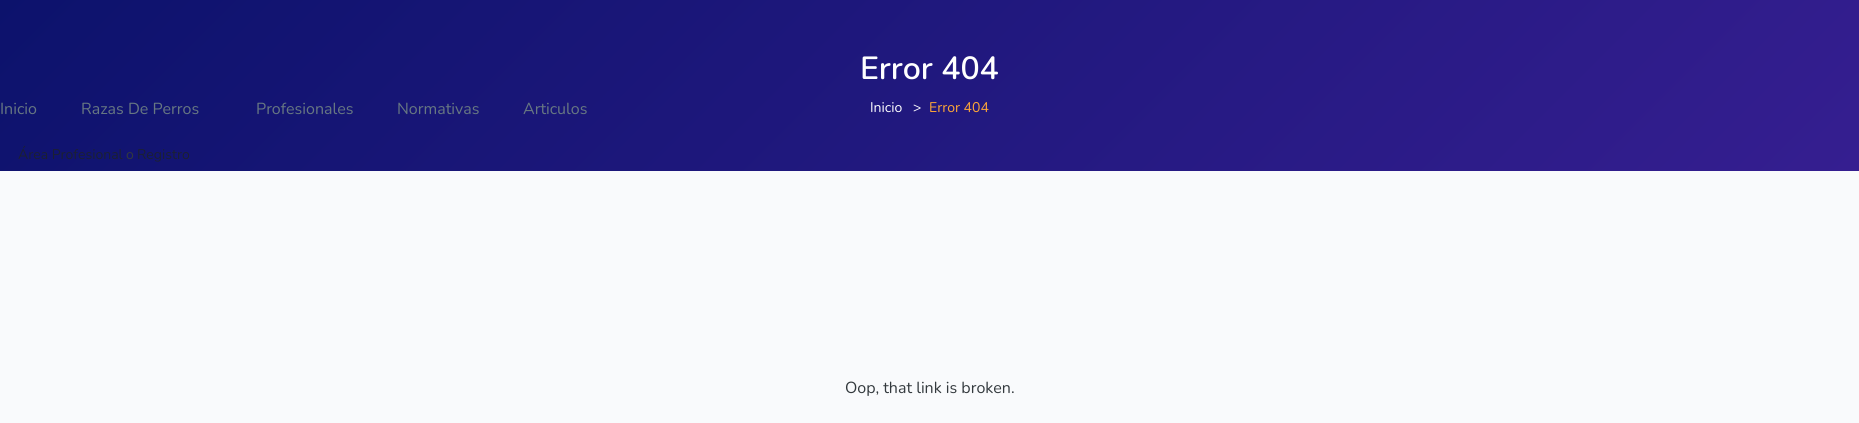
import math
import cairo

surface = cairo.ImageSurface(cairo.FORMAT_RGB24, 1859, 423)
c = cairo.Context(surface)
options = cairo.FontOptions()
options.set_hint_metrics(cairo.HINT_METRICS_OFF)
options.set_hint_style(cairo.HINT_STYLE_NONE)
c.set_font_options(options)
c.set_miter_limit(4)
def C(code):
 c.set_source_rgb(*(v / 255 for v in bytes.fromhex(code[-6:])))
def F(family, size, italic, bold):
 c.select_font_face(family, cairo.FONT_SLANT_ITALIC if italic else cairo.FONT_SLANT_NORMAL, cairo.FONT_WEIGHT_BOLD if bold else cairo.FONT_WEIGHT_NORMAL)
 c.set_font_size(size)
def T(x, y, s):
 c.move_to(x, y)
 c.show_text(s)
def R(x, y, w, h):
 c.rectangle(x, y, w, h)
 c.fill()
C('f9fafc')
c.paint()
gradient = cairo.LinearGradient(422,-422,1437,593)
gradient.add_color_stop_rgba(0,0.047,0.071,0.424,1)
gradient.add_color_stop_rgba(1,0.208,0.118,0.565,1)
c.set_source(gradient)
R(0,0,1859,171)
F('Nunito',16,0,0)
C('677782')
T(0,114,'Inicio')
T(81,114,'Razas De Perros')
T(256,114,'Profesionales')
T(397,114,'Normativas')
T(523,114,'Articulos')
F('Nunito',14,0,0)
C('1b2032')
T(18,159,'Área Profesional')
C('33393d')
T(126,159,'o')
C('1b2032')
T(137,159,'Registro')
F('Nunito SemiBold',32,0,0)
C('ffffff')
T(860,79,'Error 404')
F('Nunito',14,0,0)
T(870,112,'Inicio')
T(913,112,'>')
C('ffa737')
T(929,112,'Error 404')
F('Nunito',16,0,0)
C('33393d')
T(845,393,'Oop, that link is broken.')
surface.write_to_png('o.png')
